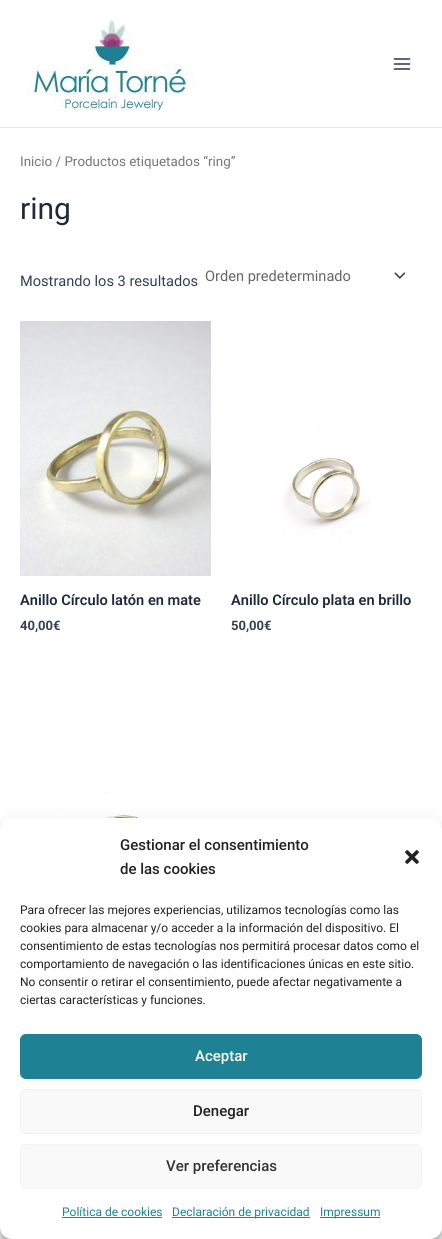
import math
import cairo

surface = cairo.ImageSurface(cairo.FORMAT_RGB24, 442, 1239)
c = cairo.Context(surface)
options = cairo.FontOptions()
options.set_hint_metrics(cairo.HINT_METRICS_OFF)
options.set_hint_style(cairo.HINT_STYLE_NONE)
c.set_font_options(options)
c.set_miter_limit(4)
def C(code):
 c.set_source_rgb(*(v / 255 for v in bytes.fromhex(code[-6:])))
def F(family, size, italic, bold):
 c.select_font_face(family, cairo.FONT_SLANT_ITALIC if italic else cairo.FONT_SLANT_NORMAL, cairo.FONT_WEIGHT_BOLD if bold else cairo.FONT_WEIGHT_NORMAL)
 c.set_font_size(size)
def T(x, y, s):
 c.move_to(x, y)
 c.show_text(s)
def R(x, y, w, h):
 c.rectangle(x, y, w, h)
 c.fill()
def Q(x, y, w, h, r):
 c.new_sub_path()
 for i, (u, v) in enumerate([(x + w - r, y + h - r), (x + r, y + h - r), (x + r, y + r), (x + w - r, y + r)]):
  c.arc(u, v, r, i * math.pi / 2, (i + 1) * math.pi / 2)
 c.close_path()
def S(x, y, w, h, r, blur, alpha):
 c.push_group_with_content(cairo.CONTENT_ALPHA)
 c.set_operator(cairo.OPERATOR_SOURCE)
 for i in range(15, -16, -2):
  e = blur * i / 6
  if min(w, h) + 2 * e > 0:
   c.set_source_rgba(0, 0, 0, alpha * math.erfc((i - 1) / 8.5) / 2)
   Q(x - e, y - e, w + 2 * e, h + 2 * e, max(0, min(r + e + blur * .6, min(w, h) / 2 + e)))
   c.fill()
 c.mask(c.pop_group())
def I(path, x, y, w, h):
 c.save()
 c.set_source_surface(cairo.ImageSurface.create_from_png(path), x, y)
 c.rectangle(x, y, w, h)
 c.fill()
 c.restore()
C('ffffff')
c.paint()
C('eaeaea')
R(0,127,442,1)
I('1.png',20,18,176,93)
I('2.png',393,58,18,12)
F('Roboto',13.4,0,0)
C('777777')
T(20,166,'Inicio / Productos etiquetados “ring”')
F('Roboto',30,0,0)
C('1e293b')
T(20,219,'ring')
F('Roboto',14.6,0,0)
C('334155')
T(20,286,'Mostrando los 3 resultados')
I('3.png',394,272,11,7)
C('666666')
T(205,281,'Orden predeterminado')
I('4.png',20,321,191,255)
F('Roboto SemiBold',14.6,0,0)
C('1e293b')
T(20,605,'Anillo Círculo latón en mate')
F('Roboto',13,0,1)
C('334155')
T(20,630,'40,00€')
I('5.png',281,425,90,128)
F('Roboto SemiBold',14.6,0,0)
C('1e293b')
T(231,605,'Anillo Círculo plata en brillo')
F('Roboto',13,0,1)
C('334155')
T(231,630,'50,00€')
I('6.png',55,792,103,26)
C('000000')
S(0,824,442,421,12,3,.23)
S(0,828,442,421,12,10,.19)
C('ffffff')
Q(0,818,442,421,12)
c.fill()
F('Roboto Medium',15,0,0)
C('222222')
T(120,850,'Gestionar el consentimiento')
T(120,874,'de las cookies')
I('7.png',405,850,14,14)
F('Roboto',12,0,0)
T(20,914,'Para ofrecer las mejores experiencias, utilizamos tecnologías como las')
T(20,932,'cookies para almacenar y/o acceder a la información del dispositivo. El')
T(20,950,'consentimiento de estas tecnologías nos permitirá procesar datos como el')
T(20,968,'comportamiento de navegación o las identificaciones únicas en este sitio.')
T(20,986,'No consentir o retirar el consentimiento, puede afectar negativamente a')
T(20,1004,'ciertas características y funciones.')
C('1e8194')
Q(20.5,1034.5,401,44,5.5)
c.fill_preserve()
c.set_line_width(1)
c.stroke()
F('Roboto Medium',15,0,0)
C('ffffff')
T(195,1061,'Aceptar')
C('f9f9f9')
Q(20.5,1089.5,401,44,5.5)
c.fill_preserve()
C('f2f2f2')
c.stroke()
C('222222')
T(193,1116,'Denegar')
C('f9f9f9')
Q(20.5,1144.5,401,44,5.5)
c.fill_preserve()
C('f2f2f2')
c.stroke()
C('333333')
T(166,1171,'Ver preferencias')
F('Roboto',12,0,0)
C('1e8194')
T(62,1216,'Política de cookies')
R(62,1217,100,1)
R(172,1217,138,1)
T(172,1216,'Declaración de privacidad')
R(320,1217,60,1)
T(320,1216,'Impressum')
surface.write_to_png('o.png')
